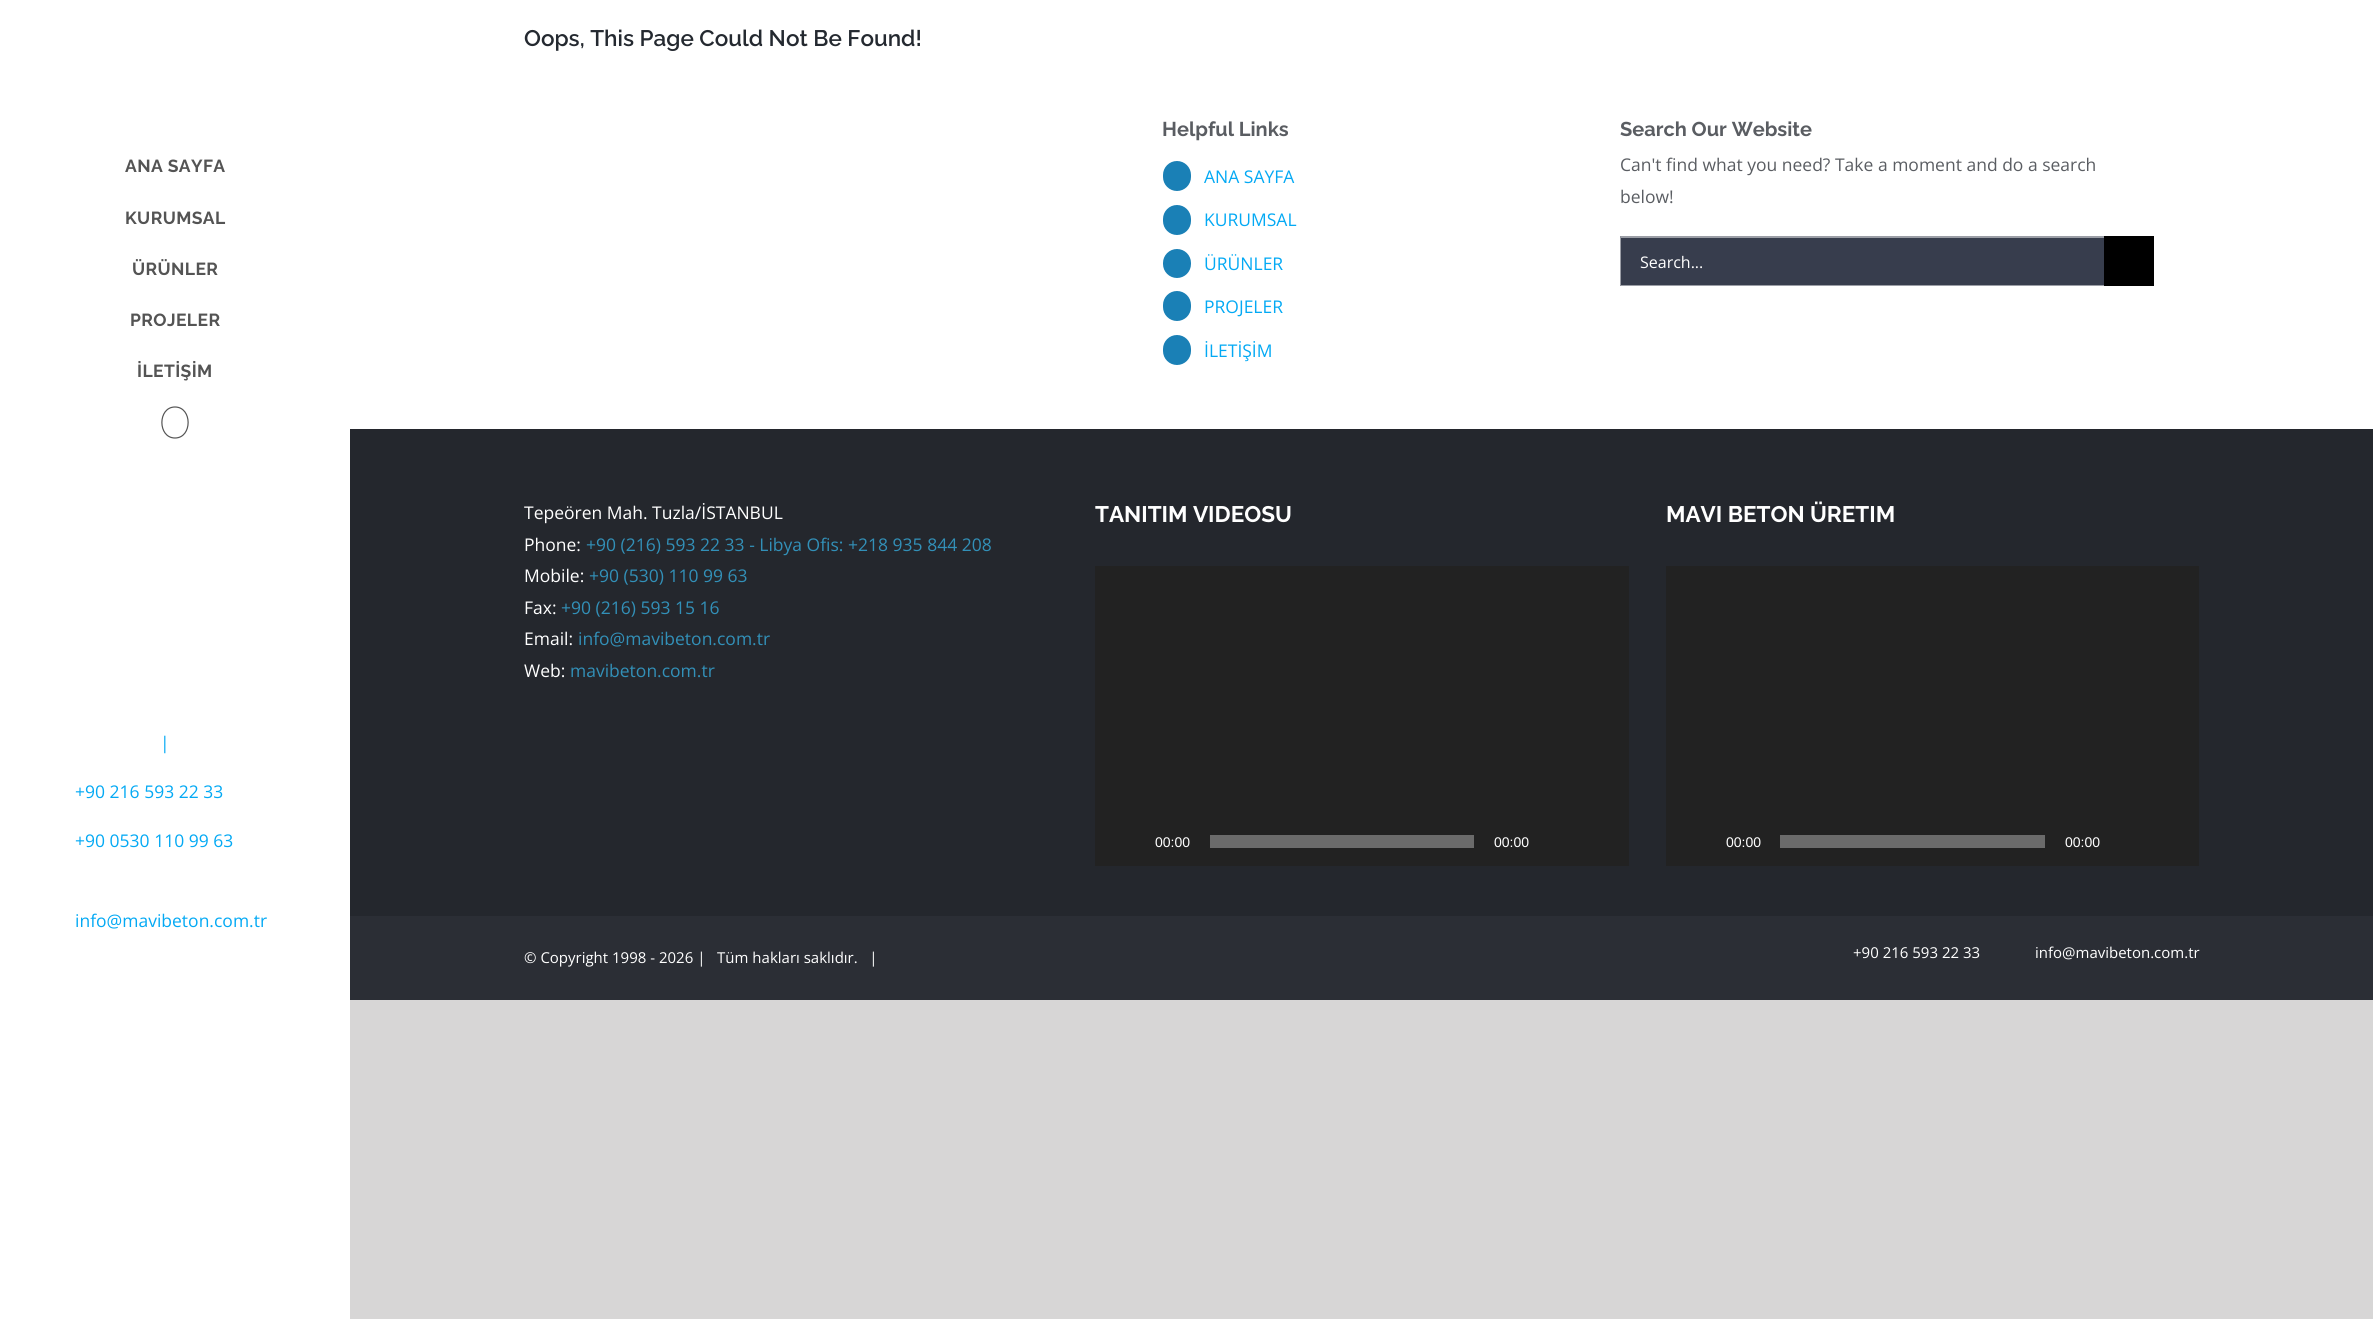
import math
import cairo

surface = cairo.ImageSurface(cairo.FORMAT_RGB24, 2373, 1319)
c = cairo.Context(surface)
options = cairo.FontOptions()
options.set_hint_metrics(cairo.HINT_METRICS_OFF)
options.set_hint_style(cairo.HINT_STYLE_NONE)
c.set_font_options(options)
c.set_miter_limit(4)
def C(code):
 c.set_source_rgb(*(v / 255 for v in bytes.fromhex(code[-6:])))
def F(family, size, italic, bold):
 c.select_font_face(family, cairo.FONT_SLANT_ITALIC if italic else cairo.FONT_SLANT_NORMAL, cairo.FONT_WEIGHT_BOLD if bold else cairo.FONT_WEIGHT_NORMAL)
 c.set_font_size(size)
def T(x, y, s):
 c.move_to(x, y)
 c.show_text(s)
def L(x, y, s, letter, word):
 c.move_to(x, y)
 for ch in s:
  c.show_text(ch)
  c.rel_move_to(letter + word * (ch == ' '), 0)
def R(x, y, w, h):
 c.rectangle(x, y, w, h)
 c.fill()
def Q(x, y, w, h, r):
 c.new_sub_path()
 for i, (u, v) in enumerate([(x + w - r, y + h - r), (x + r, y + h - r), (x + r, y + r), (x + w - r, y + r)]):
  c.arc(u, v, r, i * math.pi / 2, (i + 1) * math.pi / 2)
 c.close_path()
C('d7d6d6')
c.paint()
C('ffffff')
R(350,0,2023,429)
R(0,0,350,1319)
F('Raleway',17.5,0,1)
C('545454')
L(125,172,'ANA SAYFA',.4,0)
L(125,224,'KURUMSAL',.4,0)
L(132,275,'ÜRÜNLER',.4,0)
L(130,326,'PROJELER',.4,0)
L(137,377,'İLETİŞİM',.4,0)
c.new_path()
c.move_to(175,407)
c.curve_to(192.5,407,192.5,438,175,438)
c.curve_to(157.5,438,157.5,407,175,407)
c.close_path()
c.set_line_width(1.2)
c.stroke()
F('Open Sans',17.5,0,0)
C('03a9f4')
T(160,749,'|')
T(75,798,'+90 216 593 22 33')
T(75,847,'+90 0530 110 99 63')
T(75,927,'info@mavibeton.com.tr')
F('Raleway SemiBold',22.5,0,0)
C('242930')
T(524,46,'Oops, This Page Could Not Be Found!')
F('Raleway',20,0,1)
C('5a5d62')
T(1162,136,'Helpful Links')
C('1a80b6')
Q(1163,161,28,30,14)
c.fill()
F('Open Sans',17.5,0,0)
C('03a9f4')
T(1204,183,'ANA SAYFA')
C('1a80b6')
Q(1163,205,28,30,14)
c.fill()
C('03a9f4')
T(1204,226,'KURUMSAL')
C('1a80b6')
Q(1163,249,28,29,14)
c.fill()
C('03a9f4')
T(1204,270,'ÜRÜNLER')
C('1a80b6')
Q(1163,291,28,30,14)
c.fill()
C('03a9f4')
T(1204,313,'PROJELER')
C('1a80b6')
Q(1163,335,28,30,14)
c.fill()
C('03a9f4')
T(1204,357,'İLETİŞİM')
F('Raleway',20,0,1)
C('5a5d62')
T(1620,136,'Search Our Website')
F('Open Sans',17.5,0,0)
T(1620,171,'Can\'t find what you need? Take a moment and do a search')
T(1620,203,'below!')
C('373d4d')
R(1620,236,484,50)
C('9b9ea6')
c.new_path()
c.move_to(1620,236)
c.line_to(2104,236)
c.line_to(2104,238)
c.line_to(1621,238)
c.close_path()
c.fill()
c.new_path()
c.move_to(2104,286)
c.line_to(1620,286)
c.line_to(1621,285)
c.line_to(2104,285)
c.close_path()
c.fill()
c.set_source_rgba(1,1,1,0.5)
c.new_path()
c.move_to(1620,286)
c.line_to(1620,236)
c.line_to(1621,238)
c.line_to(1621,285)
c.close_path()
c.fill()
F('Open Sans',16,0,0)
C('ffffff')
T(1640,268,'Search...')
C('000000')
R(2104,236,50,50)
C('24272d')
R(350,429,2023,487)
F('Open Sans',17.5,0,0)
C('ffffff')
T(524,519,'Tepeören Mah. Tuzla/İSTANBUL')
T(524,551,'Phone:')
C('3290b8')
T(586,551,'+90 (216) 593 22 33 - Libya Ofis: +218 935 844 208')
C('ffffff')
T(524,582,'Mobile:')
C('3290b8')
T(589,582,'+90 (530) 110 99 63')
C('ffffff')
T(524,614,'Fax:')
C('3290b8')
T(561,614,'+90 (216) 593 15 16')
C('ffffff')
T(524,645,'Email:')
C('3290b8')
T(578,645,'info@mavibeton.com.tr')
C('ffffff')
T(524,677,'Web:')
C('3290b8')
T(570,677,'mavibeton.com.tr')
F('Raleway',22.5,0,1)
C('ffffff')
T(1095,522,'TANITIM VIDEOSU')
C('222222')
R(1095,566,534,300)
F('Liberation Sans',14,0,0)
C('ffffff')
T(1155,847,'00:00')
C('6b6b6b')
R(1210,835,264,13)
C('ffffff')
T(1494,847,'00:00')
F('Raleway',22.5,0,1)
T(1666,522,'MAVI BETON ÜRETIM')
C('222222')
R(1666,566,533,300)
F('Liberation Sans',14,0,0)
C('ffffff')
T(1726,847,'00:00')
C('6b6b6b')
R(1780,835,265,13)
C('ffffff')
T(2065,847,'00:00')
C('2b2e35')
R(350,916,2023,84)
F('Open Sans',15,0,0)
C('ffffff')
T(524,963,'© Copyright 1998 - 2026 |   Tüm hakları saklıdır.   |')
T(1853,958,'+90 216 593 22 33')
T(2035,958,'info@mavibeton.com.tr')
surface.write_to_png('o.png')
